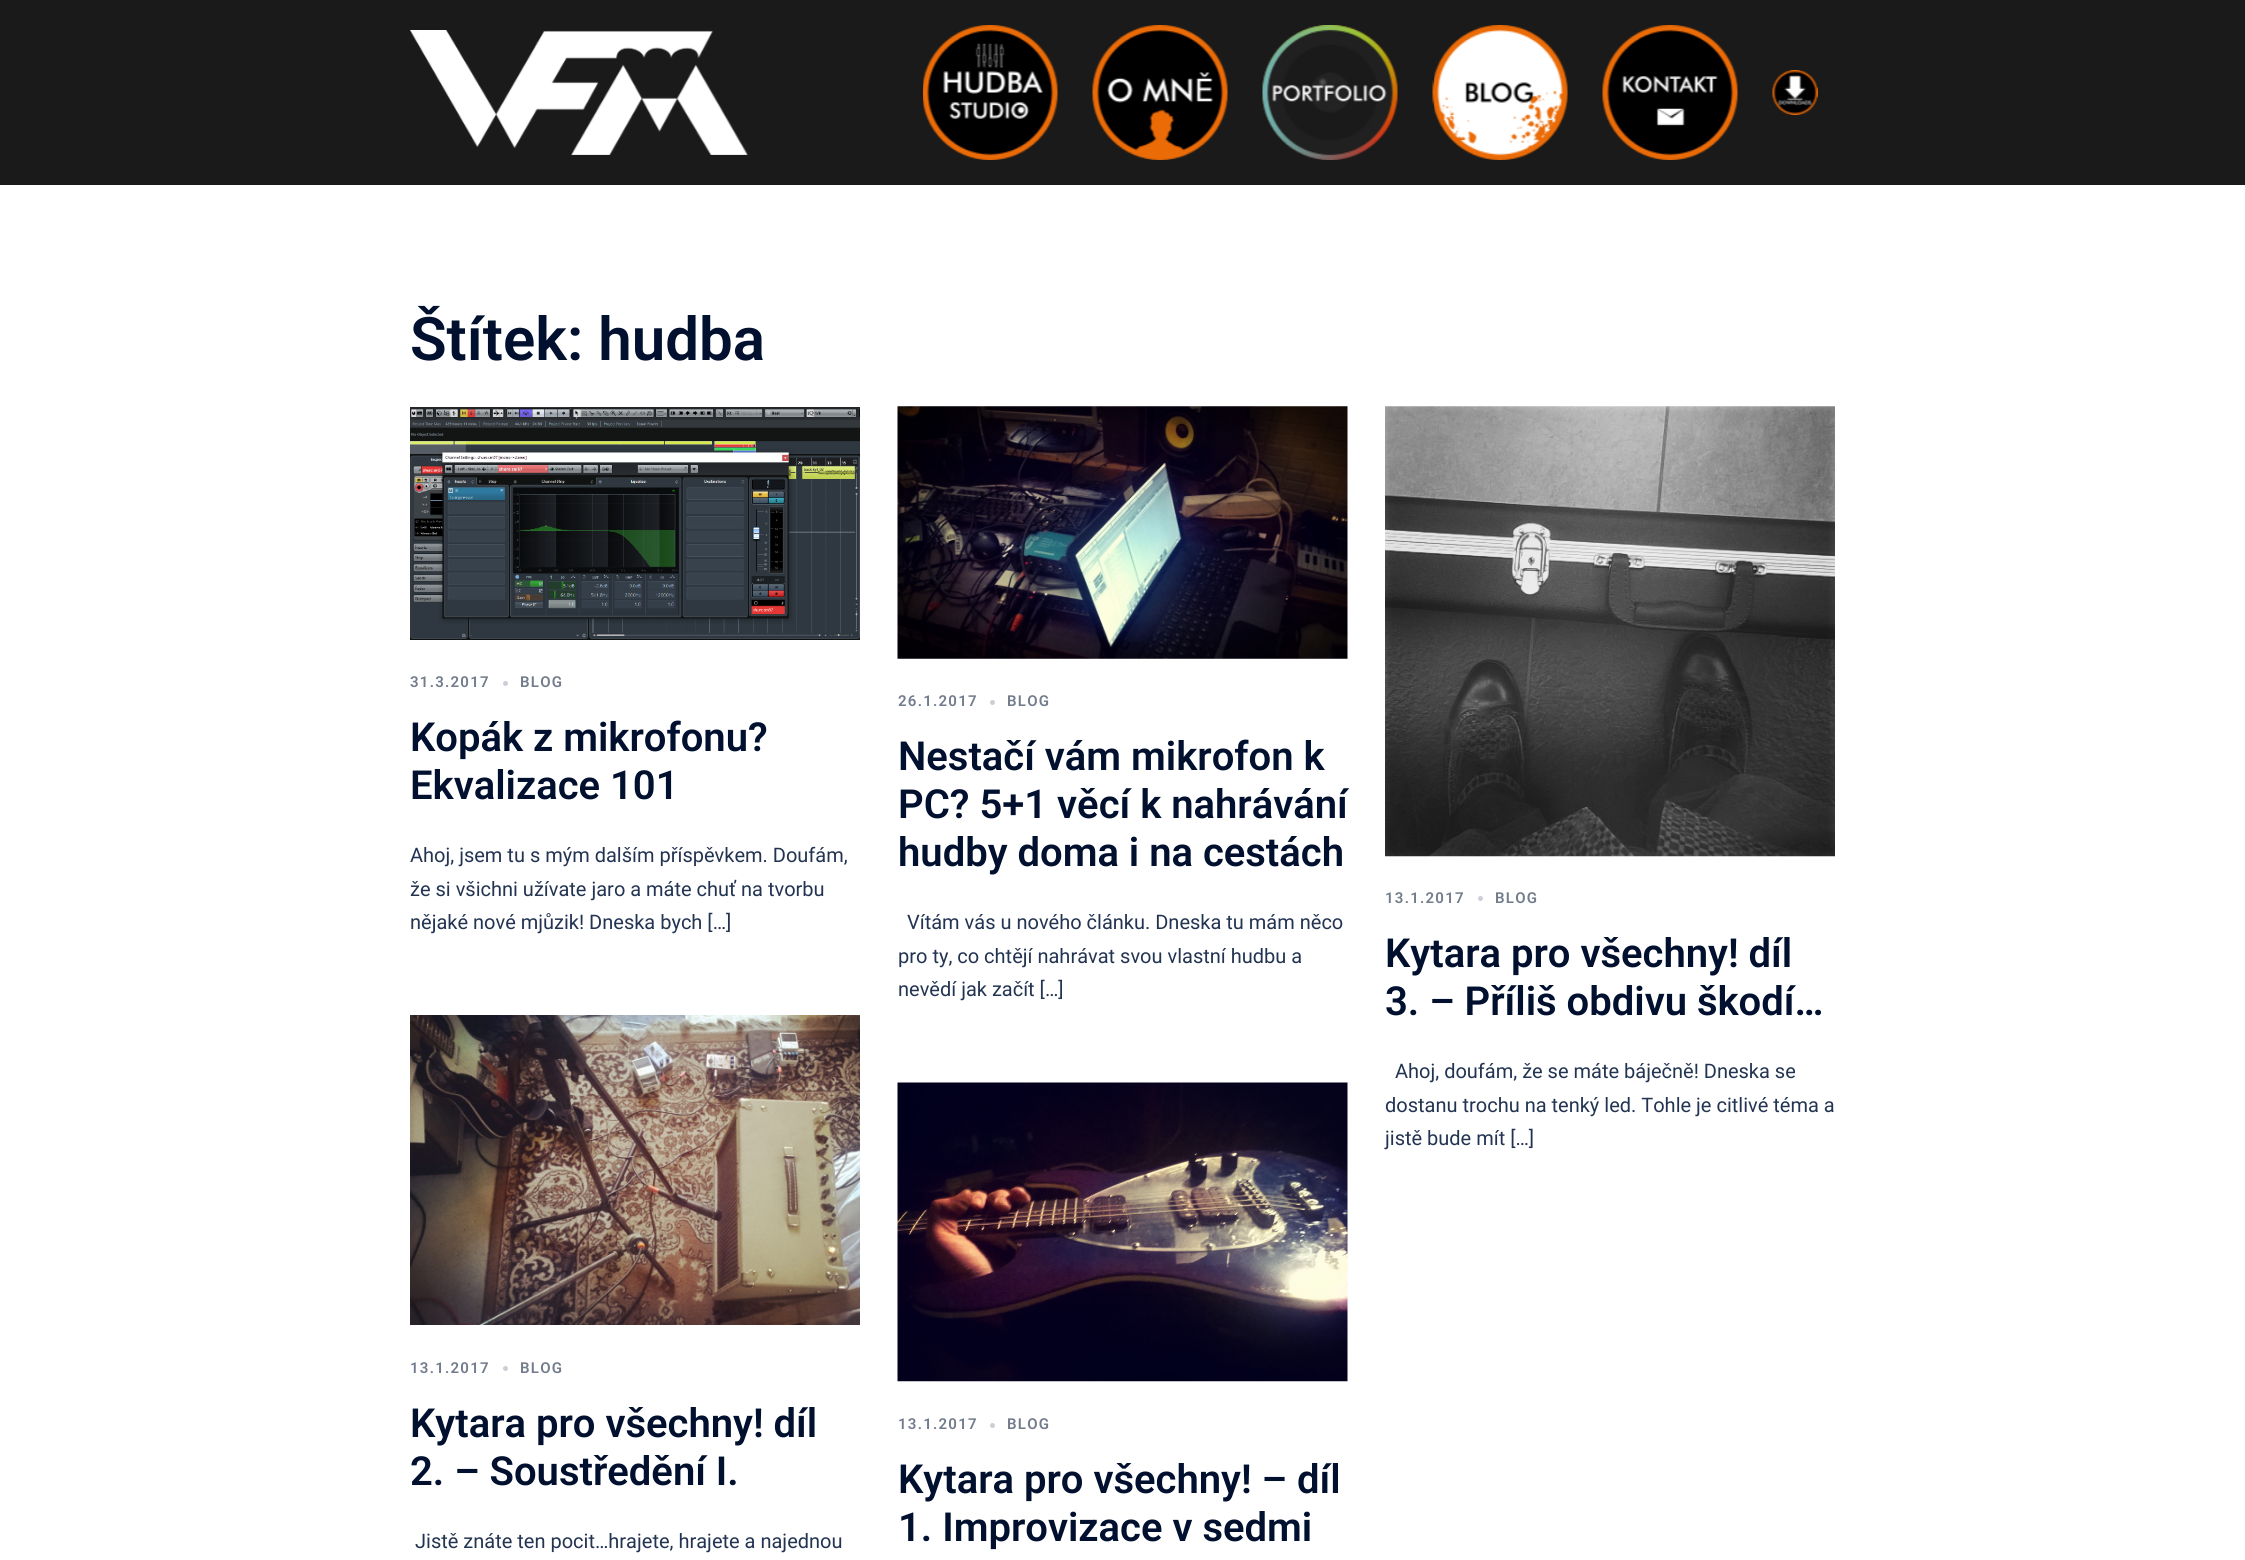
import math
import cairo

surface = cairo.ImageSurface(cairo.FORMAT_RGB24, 2245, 1560)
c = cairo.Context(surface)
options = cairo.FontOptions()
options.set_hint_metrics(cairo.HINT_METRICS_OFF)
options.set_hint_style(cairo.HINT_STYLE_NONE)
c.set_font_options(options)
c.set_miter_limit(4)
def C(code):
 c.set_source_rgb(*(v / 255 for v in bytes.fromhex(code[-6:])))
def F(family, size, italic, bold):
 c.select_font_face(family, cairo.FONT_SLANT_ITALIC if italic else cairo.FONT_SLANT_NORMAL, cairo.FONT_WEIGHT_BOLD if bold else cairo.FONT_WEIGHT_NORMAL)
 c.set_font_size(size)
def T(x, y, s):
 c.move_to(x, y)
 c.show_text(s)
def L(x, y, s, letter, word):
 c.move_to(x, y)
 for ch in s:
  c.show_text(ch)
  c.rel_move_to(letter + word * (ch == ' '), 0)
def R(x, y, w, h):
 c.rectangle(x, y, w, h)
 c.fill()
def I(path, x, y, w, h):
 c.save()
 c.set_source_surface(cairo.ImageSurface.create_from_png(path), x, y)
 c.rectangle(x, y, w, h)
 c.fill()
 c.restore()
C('ffffff')
c.paint()
C('1a1a1a')
R(0,0,2245,185)
I('1.png',410,30,338,125)
I('2.png',923,25,135,135)
I('3.png',1092,25,136,135)
I('4.png',1262,25,136,135)
I('5.png',1432,25,136,135)
I('6.png',1602,25,136,135)
I('7.png',1772,70,46,45)
F('Roboto SemiBold',60,0,0)
C('00102e')
T(410,360,'Štítek: hudba')
I('8.png',410,407,450,233)
F('Roboto SemiBold',15,0,0)
C('737c8c')
L(410,687,'31.3.2017',1.25,0)
C('cccfd5')
c.new_path()
c.arc(505.5,683.5,2.5,0,2 * math.pi)
c.fill()
C('737c8c')
L(520,687,'BLOG',1.25,0)
F('Roboto SemiBold',40,0,0)
C('00102e')
T(410,751,'Kopák z mikrofonu?')
T(410,799,'Ekvalizace 101')
F('Roboto',20,0,0)
C('233452')
T(410,862,'Ahoj, jsem tu s mým dalším příspěvkem. Doufám,')
T(410,896,'že si všichni užívate jaro a máte chuť na tvorbu')
T(410,929,'nějaké nové mjůzik! Dneska bych […]')
I('9.png',897,406,451,253)
F('Roboto SemiBold',15,0,0)
C('737c8c')
L(898,706,'26.1.2017',1.25,0)
C('cccfd5')
c.new_path()
c.arc(992.5,702.5,2.5,0,2 * math.pi)
c.fill()
C('737c8c')
L(1007,706,'BLOG',1.25,0)
F('Roboto SemiBold',40,0,0)
C('00102e')
T(898,770,'Nestačí vám mikrofon k')
T(898,818,'PC? 5+1 věcí k nahrávání')
T(898,866,'hudby doma i na cestách')
F('Roboto',20,0,0)
C('233452')
T(907,929,'Vítám vás u nového článku. Dneska tu mám něco')
T(898,963,'pro ty, co chtějí nahrávat svou vlastní hudbu a')
T(898,996,'nevědí jak začít […]')
I('10.png',1385,406,450,451)
F('Roboto SemiBold',15,0,0)
C('737c8c')
L(1385,903,'13.1.2017',1.25,0)
C('cccfd5')
c.new_path()
c.arc(1480.5,898.5,2.5,0,2 * math.pi)
c.fill()
C('737c8c')
L(1495,903,'BLOG',1.25,0)
F('Roboto SemiBold',40,0,0)
C('00102e')
T(1385,967,'Kytara pro všechny! díl')
T(1385,1015,'3. – Příliš obdivu škodí…')
F('Roboto',20,0,0)
C('233452')
T(1395,1078,'Ahoj, doufám, že se máte báječně! Dneska se')
T(1385,1112,'dostanu trochu na tenký led. Tohle je citlivé téma a')
T(1385,1145,'jistě bude mít […]')
I('11.png',410,1015,450,310)
F('Roboto SemiBold',15,0,0)
C('737c8c')
L(410,1373,'13.1.2017',1.25,0)
C('cccfd5')
c.new_path()
c.arc(505.5,1368.5,2.5,0,2 * math.pi)
c.fill()
C('737c8c')
L(520,1373,'BLOG',1.25,0)
F('Roboto SemiBold',40,0,0)
C('00102e')
T(410,1437,'Kytara pro všechny! díl')
T(410,1485,'2. – Soustředění I.')
F('Roboto',20,0,0)
C('233452')
T(415,1548,'Jistě znáte ten pocit…hrajete, hrajete a najednou')
I('12.png',897,1082,451,300)
F('Roboto SemiBold',15,0,0)
C('737c8c')
L(898,1429,'13.1.2017',1.25,0)
C('cccfd5')
c.new_path()
c.arc(992.5,1425.5,2.5,0,2 * math.pi)
c.fill()
C('737c8c')
L(1007,1429,'BLOG',1.25,0)
F('Roboto SemiBold',40,0,0)
C('00102e')
T(898,1493,'Kytara pro všechny! – díl')
T(898,1541,'1. Improvizace v sedmi')
surface.write_to_png('o.png')
